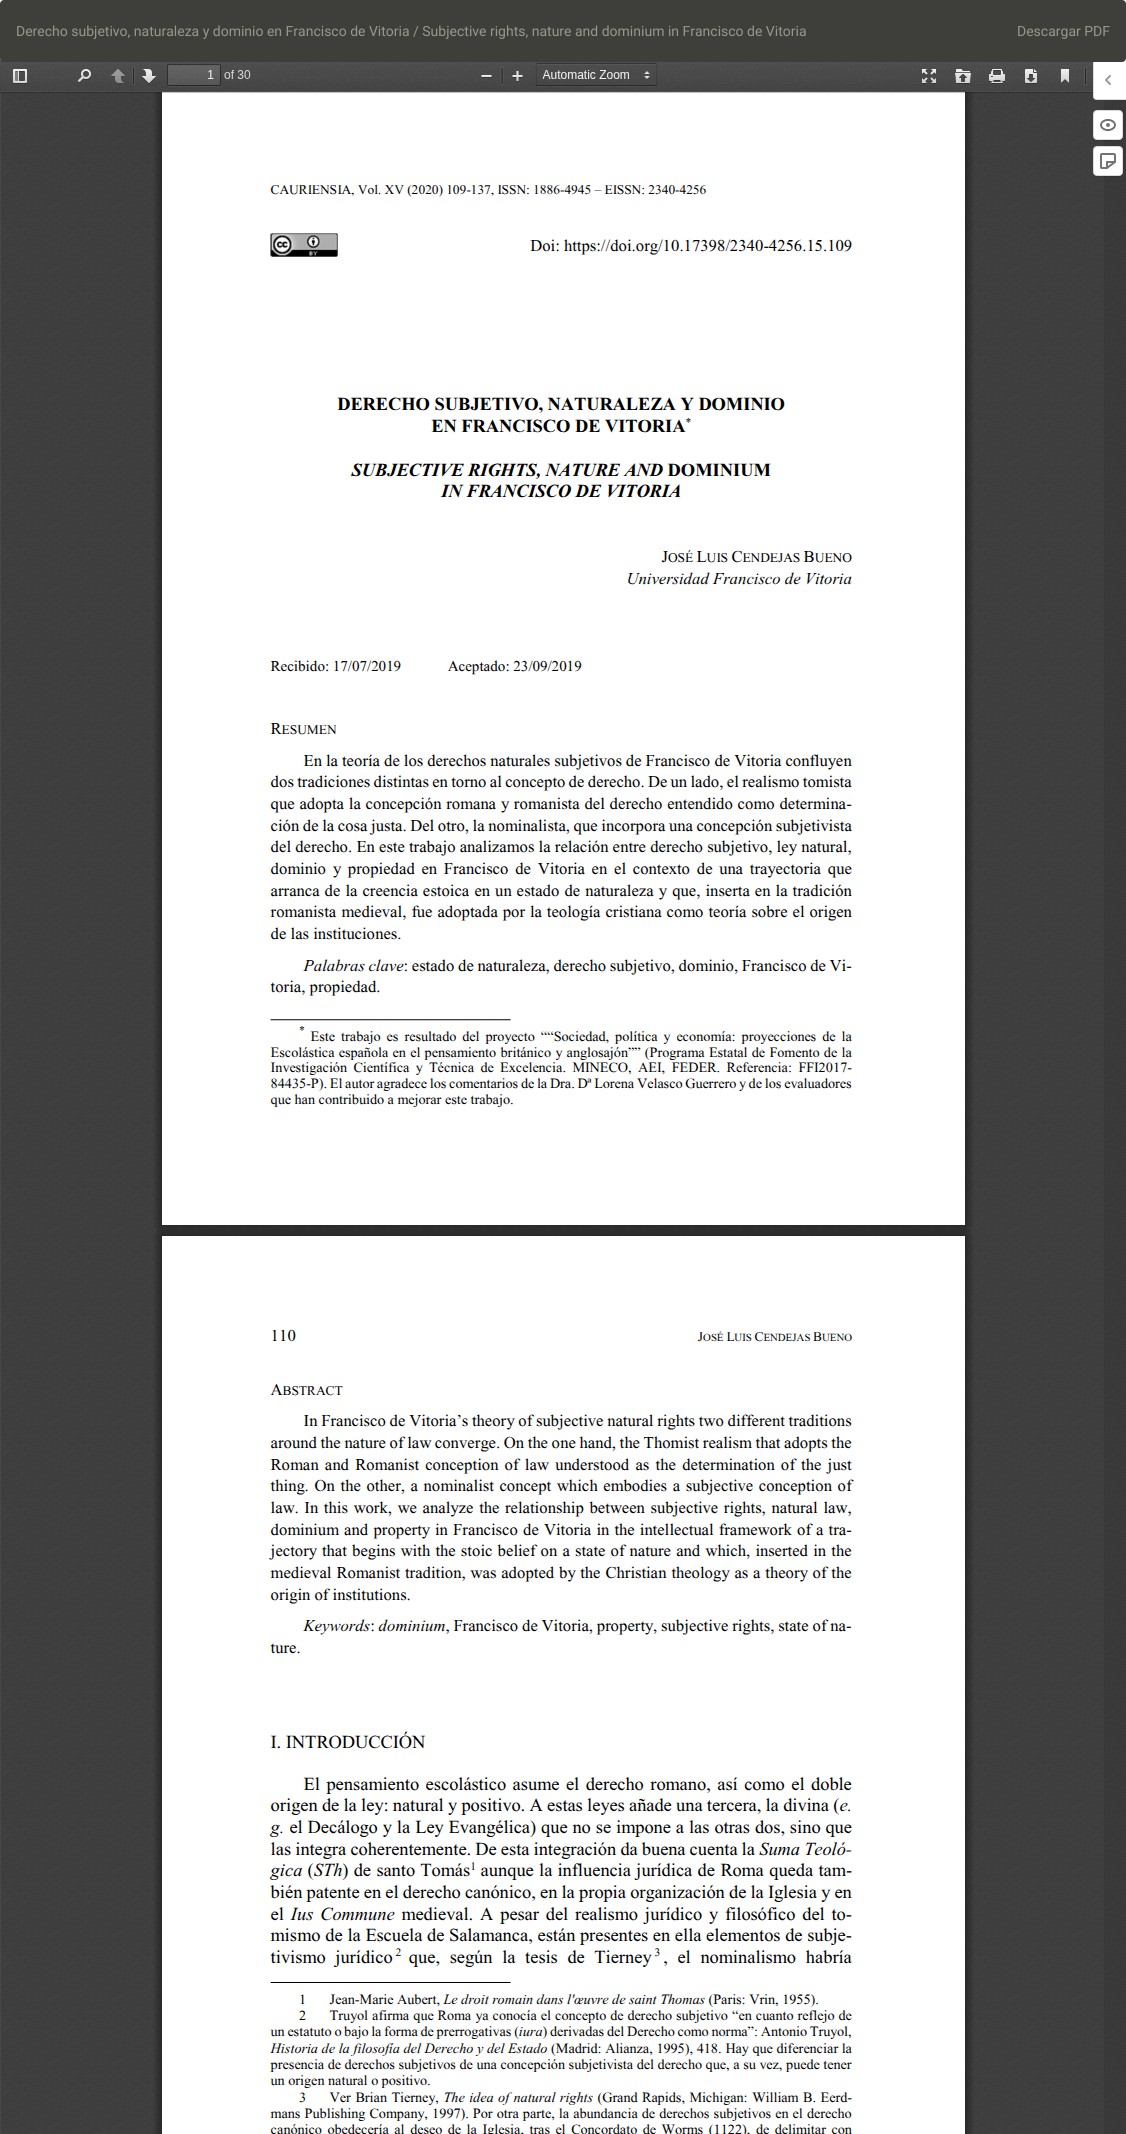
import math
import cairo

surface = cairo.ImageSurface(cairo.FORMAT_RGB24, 1126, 2134)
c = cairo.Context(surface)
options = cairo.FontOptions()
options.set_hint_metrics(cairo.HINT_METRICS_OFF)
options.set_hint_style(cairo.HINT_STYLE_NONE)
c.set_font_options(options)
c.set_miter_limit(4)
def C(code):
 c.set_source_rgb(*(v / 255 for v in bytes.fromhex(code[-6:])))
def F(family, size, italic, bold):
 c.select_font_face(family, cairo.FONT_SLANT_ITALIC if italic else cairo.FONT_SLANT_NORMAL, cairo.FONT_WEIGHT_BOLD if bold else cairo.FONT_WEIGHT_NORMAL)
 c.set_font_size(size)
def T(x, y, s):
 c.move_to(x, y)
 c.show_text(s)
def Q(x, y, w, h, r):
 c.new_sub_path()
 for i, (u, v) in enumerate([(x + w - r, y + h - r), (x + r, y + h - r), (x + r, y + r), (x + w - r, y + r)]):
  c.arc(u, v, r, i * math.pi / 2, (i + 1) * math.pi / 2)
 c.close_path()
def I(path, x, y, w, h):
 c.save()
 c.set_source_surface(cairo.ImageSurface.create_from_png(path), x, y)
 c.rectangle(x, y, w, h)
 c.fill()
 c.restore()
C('ffffff')
c.paint()
I('1.png',0,60,1126,2074)
C('3e3f3a')
Q(.5,.5,1125,61,3.5)
c.fill_preserve()
c.set_line_width(1)
c.stroke()
F('Roboto',14,0,0)
C('98978b')
T(16,36,'Derecho subjetivo, naturaleza y dominio en Francisco de Vitoria / Subjective rights, nature and dominium in Francisco de Vitoria')
T(1017,36,'Descargar PDF')
surface.write_to_png('o.png')
